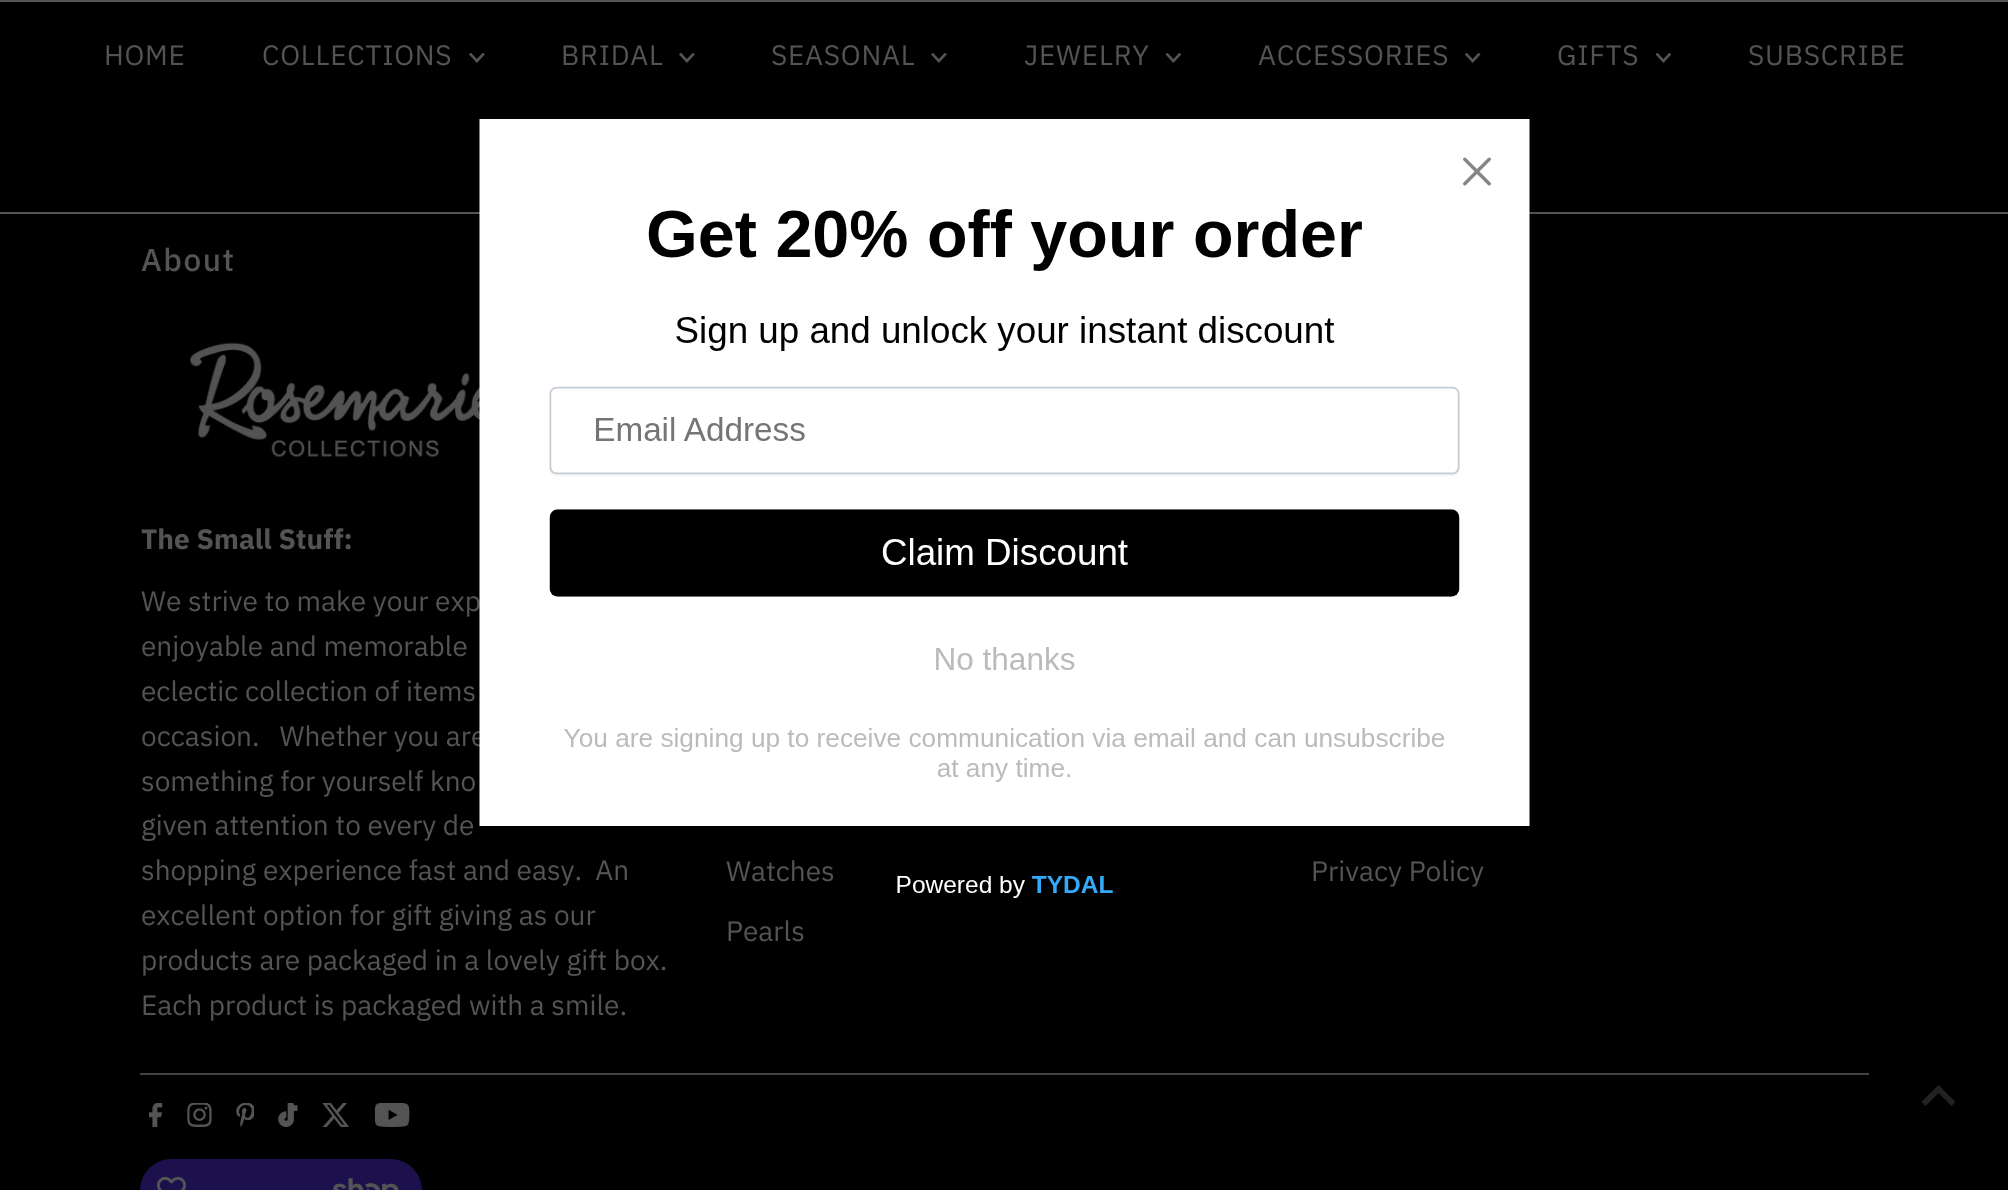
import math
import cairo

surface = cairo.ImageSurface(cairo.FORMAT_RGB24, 2008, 1190)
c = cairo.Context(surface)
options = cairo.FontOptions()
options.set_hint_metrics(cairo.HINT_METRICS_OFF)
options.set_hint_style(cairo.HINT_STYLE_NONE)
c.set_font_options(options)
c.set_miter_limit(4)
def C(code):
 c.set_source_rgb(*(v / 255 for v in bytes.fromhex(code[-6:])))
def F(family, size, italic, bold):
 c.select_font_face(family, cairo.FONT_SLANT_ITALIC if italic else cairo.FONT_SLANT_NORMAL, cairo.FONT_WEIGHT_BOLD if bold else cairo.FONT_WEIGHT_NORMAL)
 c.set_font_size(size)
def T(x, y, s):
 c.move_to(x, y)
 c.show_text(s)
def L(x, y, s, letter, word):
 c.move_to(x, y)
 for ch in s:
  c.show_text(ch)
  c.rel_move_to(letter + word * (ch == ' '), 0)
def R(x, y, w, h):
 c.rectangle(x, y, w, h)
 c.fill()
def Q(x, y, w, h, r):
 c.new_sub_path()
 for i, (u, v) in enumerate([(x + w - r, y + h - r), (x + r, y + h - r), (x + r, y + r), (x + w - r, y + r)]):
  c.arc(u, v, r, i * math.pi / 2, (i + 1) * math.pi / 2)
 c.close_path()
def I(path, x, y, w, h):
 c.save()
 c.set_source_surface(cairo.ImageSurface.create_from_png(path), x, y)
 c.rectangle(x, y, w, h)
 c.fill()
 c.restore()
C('000000')
c.paint()
C('ffffff')
R(0,0,2008,214)
C('000000')
R(0,2,2008,210)
F('IBM Plex Sans',28,0,0)
C('ffffff')
L(104,65,'HOME',.75,0)
L(262,65,'COLLECTIONS',.75,0)
I('2.png',469,53,16,10)
L(561,65,'BRIDAL',.75,0)
I('2.png',679,53,16,10)
L(771,65,'SEASONAL',.75,0)
I('2.png',931,53,16,10)
L(1024,65,'JEWELRY',.75,0)
I('3.png',1166,53,15,10)
L(1258,65,'ACCESSORIES',.75,0)
I('4.png',1465,53,16,10)
L(1557,65,'GIFTS',.75,0)
I('3.png',1656,53,15,10)
L(1748,65,'SUBSCRIBE',.75,0)
F('IBM Plex Sans Medium',31.5,0,0)
L(141,271,'About',1.5,0)
I('5.png',189,342,291,116)
F('IBM Plex Sans',28,0,1)
T(141,549,'The Small Stuff:')
F('IBM Plex Sans',28,0,0)
T(141,611,'We strive to make your exp')
T(141,656,'enjoyable and memorable')
T(141,701,'eclectic collection of items')
T(141,746,'occasion.   Whether you are')
T(141,791,'something for yourself kno')
T(141,835,'given attention to every de')
T(141,880,'shopping experience fast and easy.  An')
T(141,925,'excellent option for gift giving as our')
T(141,970,'products are packaged in a lovely gift box.')
T(141,1015,'Each product is packaged with a smile.')
T(726,881,'Watches')
T(726,941,'Pearls')
T(1311,881,'Privacy Policy')
C('cccccc')
R(140,1073,1729,2)
I('6.png',149,1103,14,24)
I('7.png',187,1103,25,24)
I('8.png',236,1103,18,24)
I('9.png',278,1103,20,24)
I('10.png',322,1103,27,24)
I('11.png',375,1103,35,24)
C('5433eb')
Q(140,1159,282,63,31.5)
c.fill()
I('12.png',156,1176,31,14)
I('13.png',333,1178,66,12)
C('666666')
c.new_path()
c.move_to(1938.5,1085)
c.line_to(1921.5,1102)
c.line_to(1925.5,1106)
c.line_to(1938.5,1093)
c.line_to(1951.5,1106)
c.line_to(1955.5,1102)
c.close_path()
c.fill()
I('1.png',0,0,2008,1190)
surface.write_to_png('o.png')
